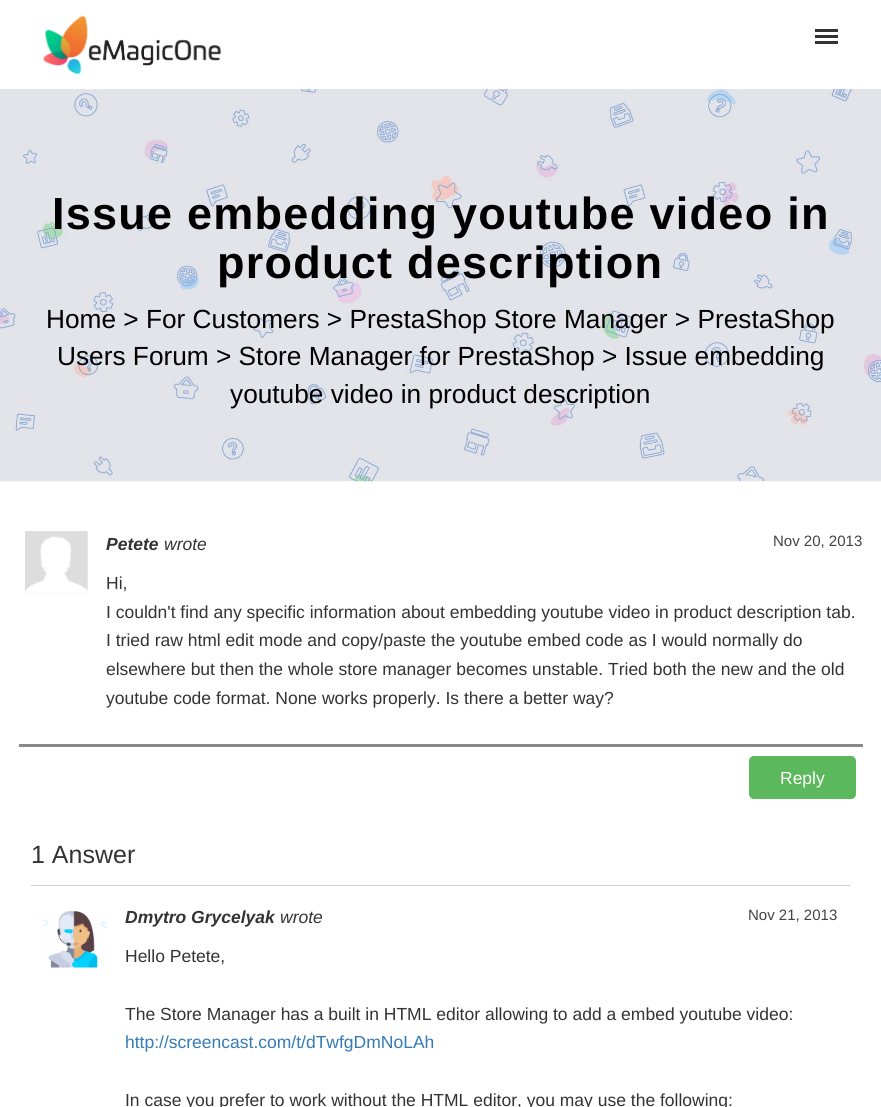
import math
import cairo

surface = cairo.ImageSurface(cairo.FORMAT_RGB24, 881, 1107)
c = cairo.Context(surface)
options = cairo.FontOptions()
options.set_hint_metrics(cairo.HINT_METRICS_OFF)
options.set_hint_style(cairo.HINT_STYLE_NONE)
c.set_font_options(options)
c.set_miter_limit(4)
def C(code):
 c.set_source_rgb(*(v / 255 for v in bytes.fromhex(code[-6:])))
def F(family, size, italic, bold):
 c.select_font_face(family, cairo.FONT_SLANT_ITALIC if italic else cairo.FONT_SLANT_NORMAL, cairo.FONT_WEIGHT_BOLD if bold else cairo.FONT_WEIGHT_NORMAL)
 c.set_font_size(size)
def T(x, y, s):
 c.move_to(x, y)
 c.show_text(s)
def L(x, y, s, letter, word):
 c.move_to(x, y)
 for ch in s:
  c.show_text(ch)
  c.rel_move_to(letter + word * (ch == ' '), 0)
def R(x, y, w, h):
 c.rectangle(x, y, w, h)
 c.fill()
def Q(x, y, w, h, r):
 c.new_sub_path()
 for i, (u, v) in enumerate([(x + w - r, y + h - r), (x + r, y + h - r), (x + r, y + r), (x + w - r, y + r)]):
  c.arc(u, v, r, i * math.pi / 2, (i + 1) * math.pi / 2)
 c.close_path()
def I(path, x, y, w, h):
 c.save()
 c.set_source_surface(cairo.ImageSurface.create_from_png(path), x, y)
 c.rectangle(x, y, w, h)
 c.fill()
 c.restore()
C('ffffff')
c.paint()
I('1.png',43,15,178,60)
C('333333')
R(815,35,23,3)
R(815,29,23,3)
R(815,41,23,3)
I('2.png',0,89,881,393)
F('Liberation Sans',45,0,1)
C('000000')
L(52,229,'Issue embedding youtube video in',1.25,0)
L(217,278,'product description',1.25,0)
F('Liberation Sans',26.25,0,0)
T(46,328,'Home > For Customers > PrestaShop Store Manager > PrestaShop')
T(57,365,'Users Forum > Store Manager for PrestaShop > Issue embedding')
T(230,403,'youtube video in product description')
C('898989')
R(19,744,844,3)
I('3.png',25,531,63,63)
I('4.png',25,531,63,63)
F('Liberation Sans',17.5,1,1)
C('333333')
T(106,550,'Petete')
F('Liberation Sans',17.5,1,0)
T(164,550,'wrote')
F('Liberation Sans',15,0,0)
C('434343')
T(773,546,'Nov 20, 2013')
F('Liberation Sans',17.5,0,0)
C('333333')
T(106,589,'Hi,')
T(106,618,'I couldn\'t find any specific information about embedding youtube video in product description tab.')
T(106,646,'I tried raw html edit mode and copy/paste the youtube embed code as I would normally do')
T(106,675,'elsewhere but then the whole store manager becomes unstable. Tried both the new and the old')
T(106,704,'youtube code format. None works properly. Is there a better way?')
C('5cb85c')
Q(749.5,756.5,106,42,4.5)
c.fill_preserve()
c.set_line_width(1)
c.stroke()
C('ffffff')
T(780,784,'Reply')
C('d0d0d0')
R(31,885,819,1)
F('Liberation Sans',25,0,0)
C('333333')
T(31,863,'1 Answer')
I('5.png',43,911,64,57)
F('Liberation Sans',17.5,1,1)
T(125,923,'Dmytro Grycelyak')
F('Liberation Sans',17.5,1,0)
T(280,923,'wrote')
F('Liberation Sans',15,0,0)
C('434343')
T(748,920,'Nov 21, 2013')
F('Liberation Sans',17.5,0,0)
C('333333')
T(125,962,'Hello Petete,')
T(125,1020,'The Store Manager has a built in HTML editor allowing to add a embed youtube video:')
C('337ab7')
T(125,1048,'http://screencast.com/t/dTwfgDmNoLAh')
C('333333')
T(125,1106,'In case you prefer to work without the HTML editor, you may use the following:')
surface.write_to_png('o.png')
